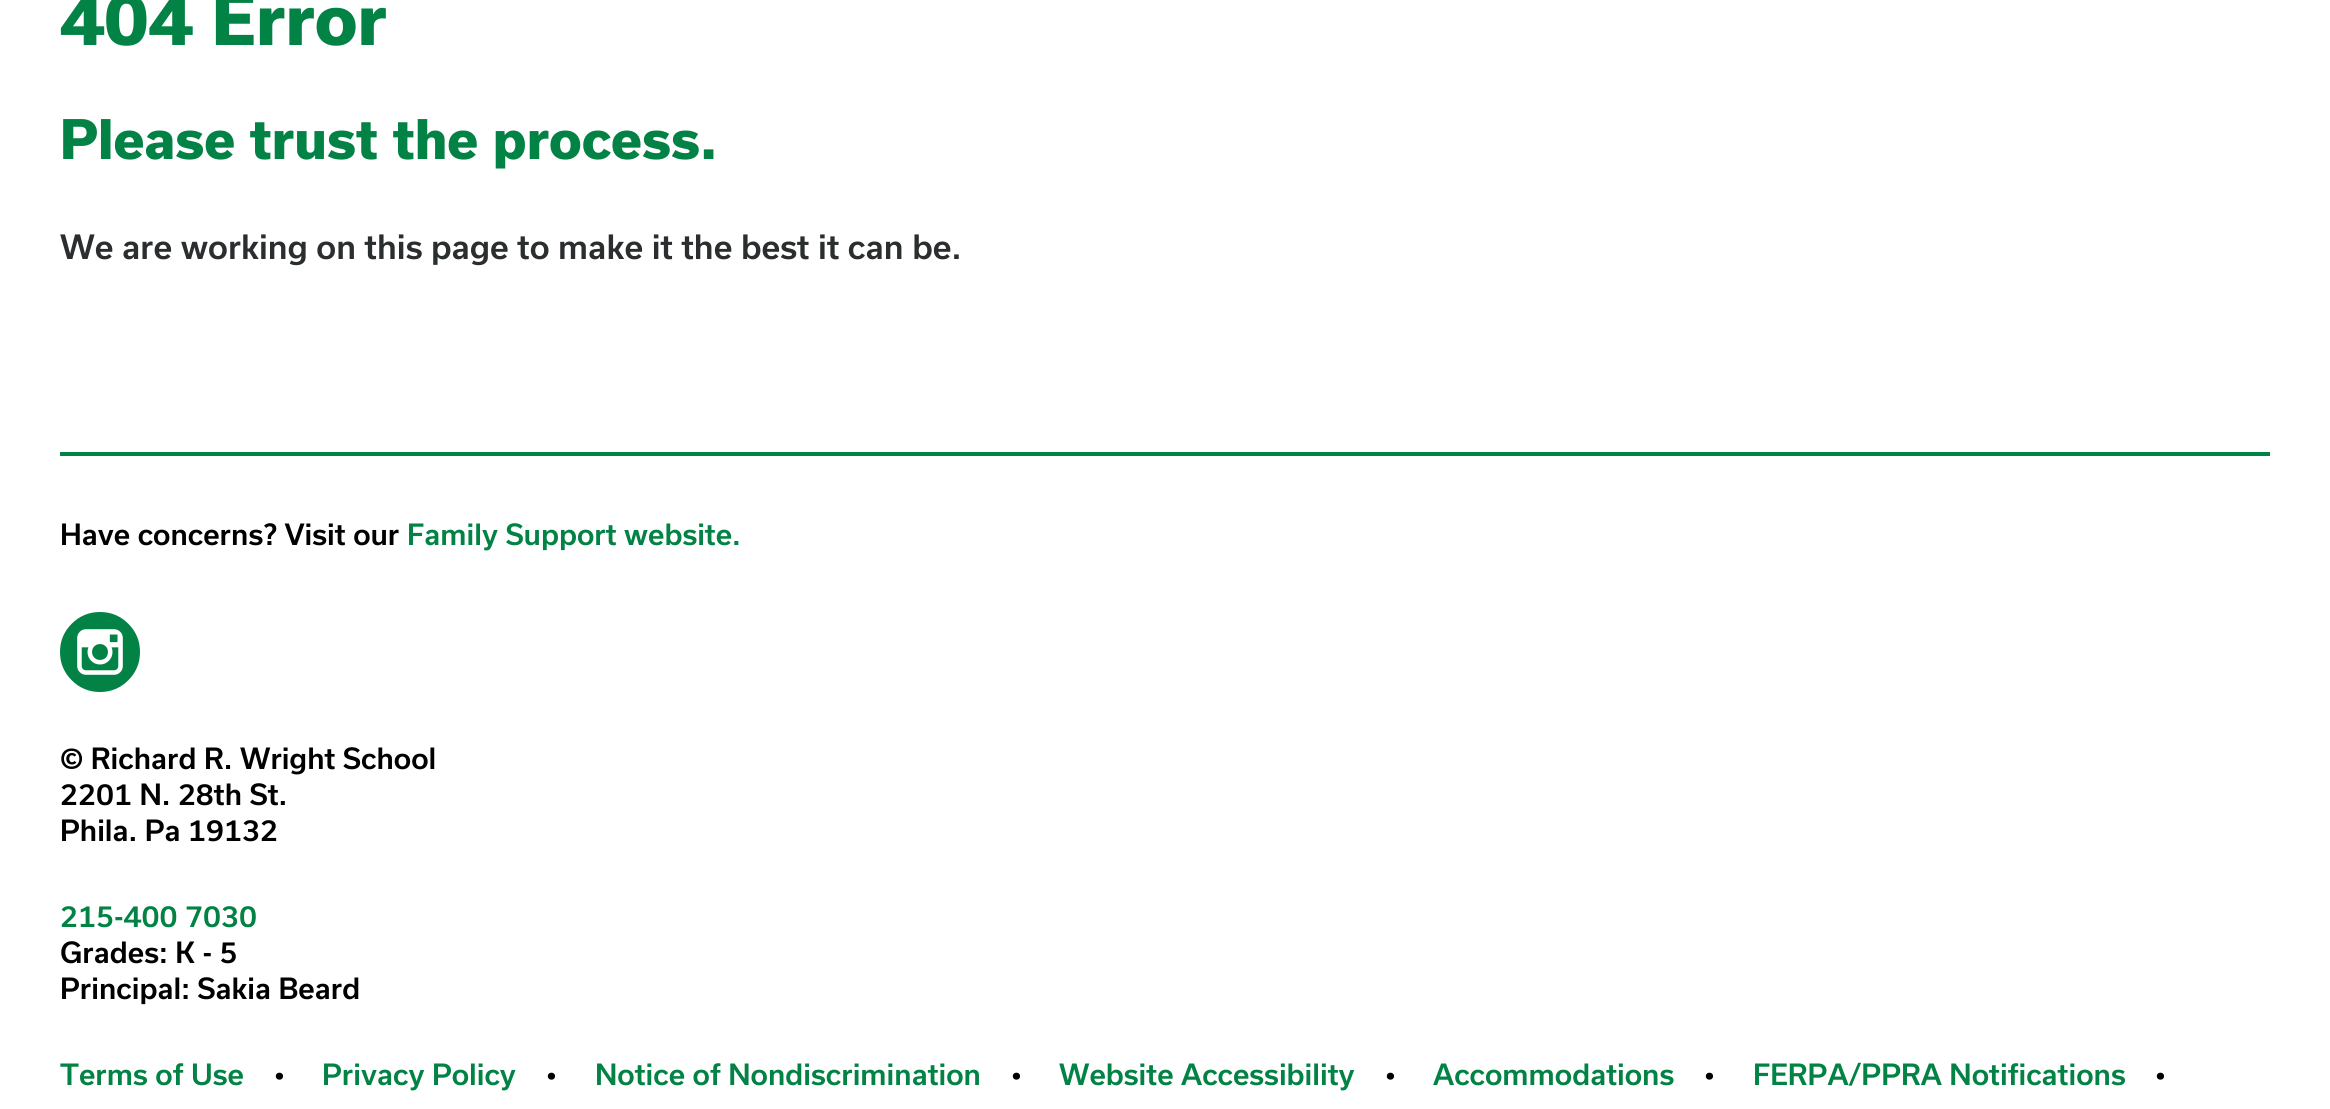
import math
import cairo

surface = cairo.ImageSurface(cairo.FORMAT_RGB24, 2330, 1109)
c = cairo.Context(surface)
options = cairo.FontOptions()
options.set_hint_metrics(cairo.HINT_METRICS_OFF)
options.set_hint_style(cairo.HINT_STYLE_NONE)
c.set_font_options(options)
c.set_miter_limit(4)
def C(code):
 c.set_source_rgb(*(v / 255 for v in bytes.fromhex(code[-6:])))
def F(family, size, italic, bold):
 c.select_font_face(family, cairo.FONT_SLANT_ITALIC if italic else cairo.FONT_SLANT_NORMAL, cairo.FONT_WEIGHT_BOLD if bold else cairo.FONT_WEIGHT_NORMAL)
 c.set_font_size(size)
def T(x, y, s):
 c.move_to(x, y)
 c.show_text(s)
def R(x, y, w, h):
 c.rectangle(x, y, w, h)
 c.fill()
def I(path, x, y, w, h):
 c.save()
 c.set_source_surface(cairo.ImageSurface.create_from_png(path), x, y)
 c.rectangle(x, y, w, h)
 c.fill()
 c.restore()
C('ffffff')
c.paint()
F('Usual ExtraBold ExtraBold',68,0,0)
C('028244')
T(60,45,'404 Error')
F('Usual ExtraBold ExtraBold',52,0,0)
T(60,159,'Please trust the process.')
F('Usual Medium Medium',32,0,0)
C('2a2e2f')
T(60,259,'We are working on this page to make it the best it can be.')
C('028244')
R(60,452,2210,4)
F('Usual Medium Medium',28,0,0)
C('000000')
T(60,545,'Have concerns? Visit our')
C('028244')
T(407,545,'Family Support website.')
I('1.png',60,612,80,80)
C('000000')
T(60,769,'© Richard R. Wright School')
T(60,805,'2201 N. 28th St.')
T(60,841,'Phila. Pa 19132')
C('028244')
T(60,927,'215-400 7030')
C('000000')
T(60,963,'Grades: K - 5')
T(60,999,'Principal: Sakia Beard')
C('028244')
T(60,1085,'Terms of Use')
C('000000')
T(274,1085,'•')
C('028244')
T(322,1085,'Privacy Policy')
C('000000')
T(546,1085,'•')
C('028244')
T(595,1085,'Notice of Nondiscrimination')
C('000000')
T(1011,1085,'•')
C('028244')
T(1059,1085,'Website Accessibility')
C('000000')
T(1385,1085,'•')
C('028244')
T(1433,1085,'Accommodations')
C('000000')
T(1704,1085,'•')
C('028244')
T(1753,1085,'FERPA/PPRA Notifications')
C('000000')
T(2155,1085,'•')
surface.write_to_png('o.png')
